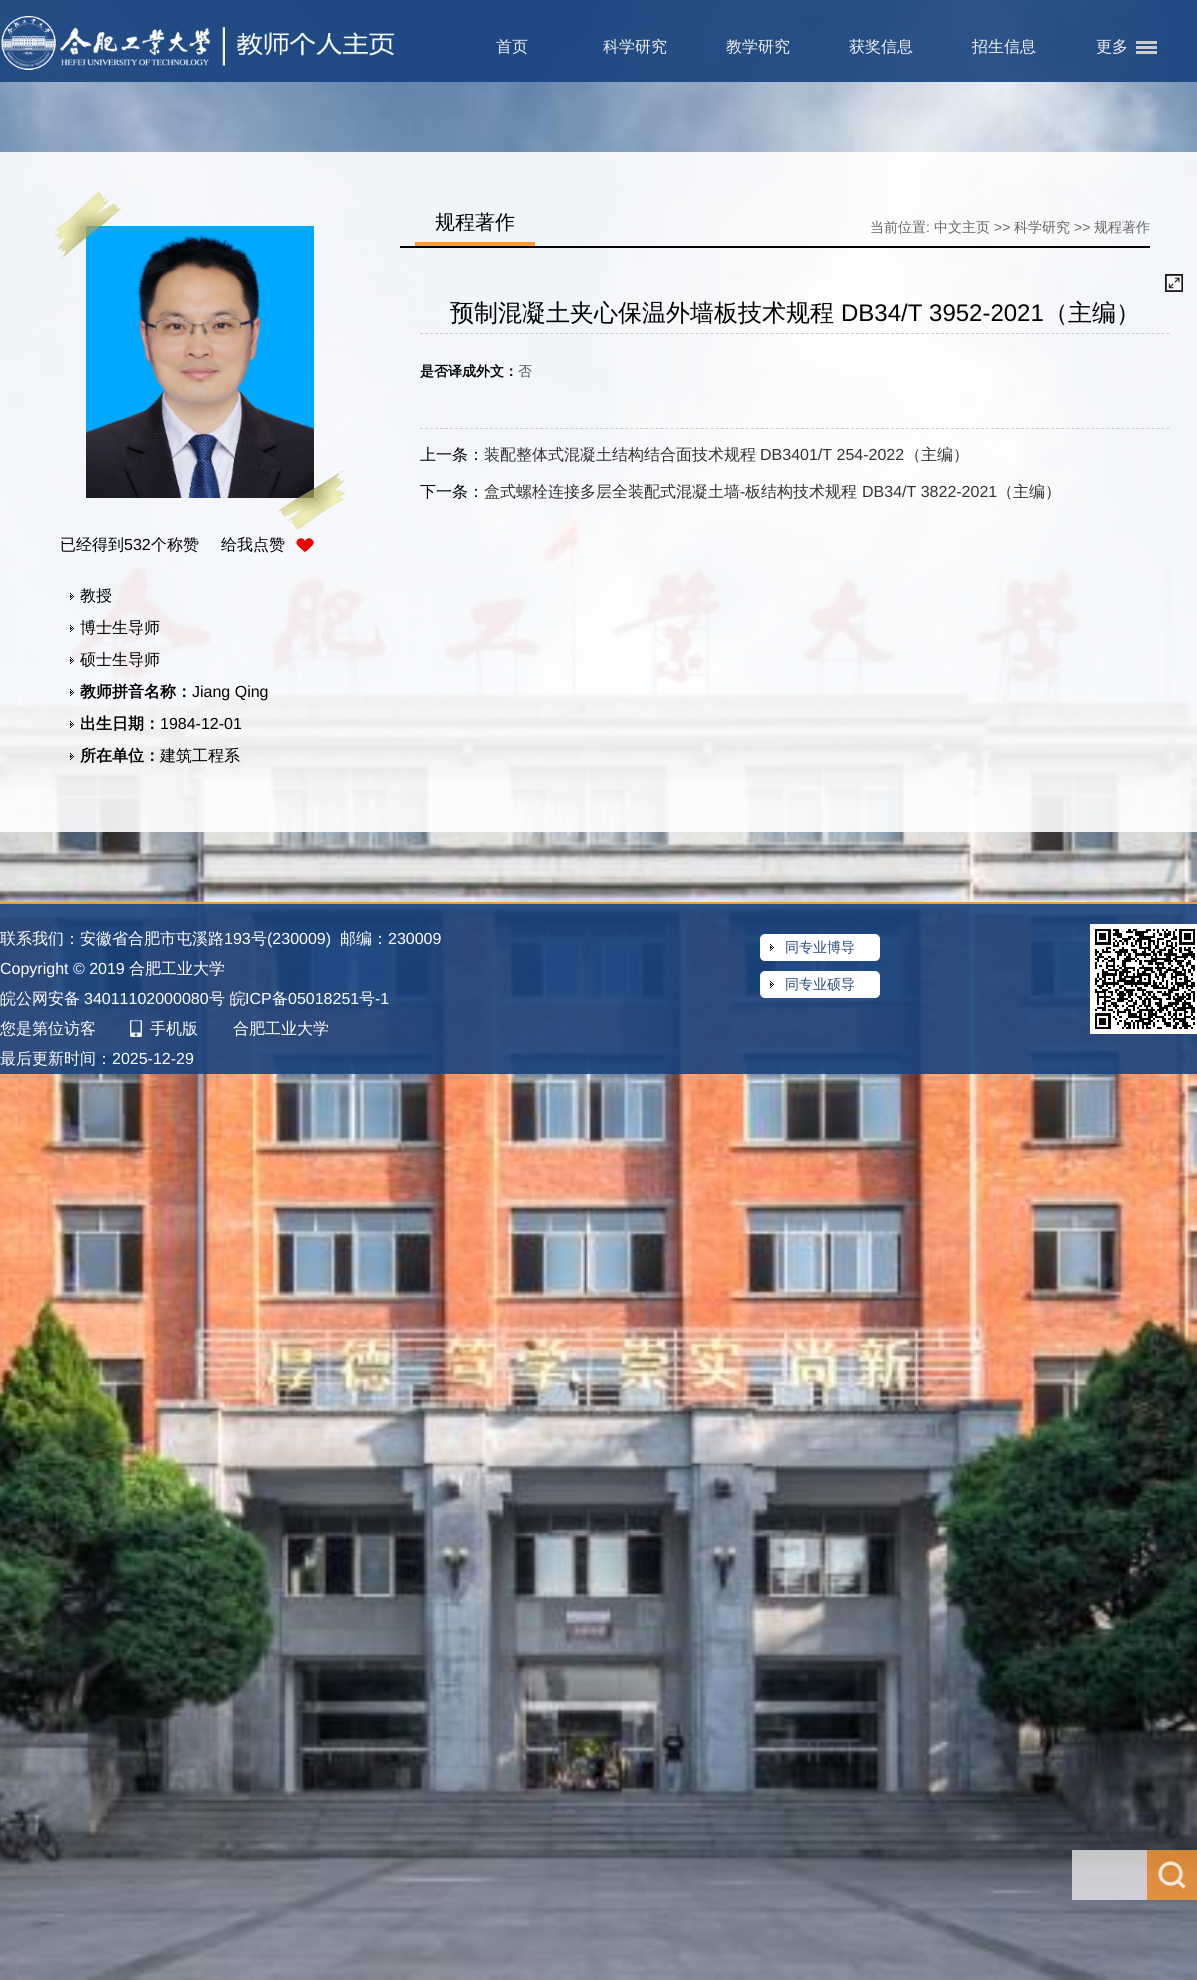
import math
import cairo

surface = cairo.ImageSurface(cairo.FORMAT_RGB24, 1197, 1980)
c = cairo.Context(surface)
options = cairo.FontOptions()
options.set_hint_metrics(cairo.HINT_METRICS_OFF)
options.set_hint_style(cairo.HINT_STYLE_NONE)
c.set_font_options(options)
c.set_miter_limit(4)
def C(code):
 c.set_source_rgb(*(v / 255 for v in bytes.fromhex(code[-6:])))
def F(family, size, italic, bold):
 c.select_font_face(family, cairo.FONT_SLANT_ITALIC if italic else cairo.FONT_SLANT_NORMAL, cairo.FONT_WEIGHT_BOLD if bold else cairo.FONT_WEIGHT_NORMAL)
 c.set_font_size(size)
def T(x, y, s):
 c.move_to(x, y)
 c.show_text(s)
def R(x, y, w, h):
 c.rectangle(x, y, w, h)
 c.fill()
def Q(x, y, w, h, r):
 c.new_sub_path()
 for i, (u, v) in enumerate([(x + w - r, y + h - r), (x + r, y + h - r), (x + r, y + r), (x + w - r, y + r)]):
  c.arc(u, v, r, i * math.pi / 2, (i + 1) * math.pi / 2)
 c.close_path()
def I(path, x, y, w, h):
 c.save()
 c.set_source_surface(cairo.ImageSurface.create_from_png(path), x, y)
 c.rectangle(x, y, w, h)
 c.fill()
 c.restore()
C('ffffff')
c.paint()
I('1.png',0,0,1197,1980)
c.set_source_rgba(0.094,0.263,0.498,0.9)
R(0,0,1197,82)
I('2.png',1,16,393,54)
F('WenQuanYi Zen Hei Medium',16,0,0)
C('f0f0f0')
T(496,52,'首页')
T(603,52,'科学研究')
T(726,52,'教学研究')
T(849,52,'获奖信息')
T(972,52,'招生信息')
I('3.png',1136,41,21,13)
T(1096,52,'更多')
c.set_source_rgba(1,1,1,0.9)
R(0,152,1197,680)
C('000000')
R(400,246,750,2)
C('ff9933')
R(415,242,120,4)
F('WenQuanYi Zen Hei Medium',20,0,0)
C('000000')
T(435,229,'规程著作')
F('WenQuanYi Zen Hei Medium',14,0,0)
C('666666')
T(870,232,'当前位置')
F('Liberation Sans',14,0,0)
T(926,232,':')
F('WenQuanYi Zen Hei Medium',14,0,0)
T(934,232,'中文主页')
F('Liberation Sans',14,0,0)
T(994,232,'>>')
F('WenQuanYi Zen Hei Medium',14,0,0)
T(1014,232,'科学研究')
F('Liberation Sans',14,0,0)
T(1074,232,'>>')
F('WenQuanYi Zen Hei Medium',14,0,0)
T(1094,232,'规程著作')
c.new_path()
c.move_to(420,333.5)
c.line_to(1170,333.5)
C('cccccc')
c.set_line_width(1)
c.set_dash([3,2.01])
c.stroke()
F('WenQuanYi Zen Hei Medium',24,0,0)
C('000000')
T(450,321,'预制混凝土夹心保温外墙板技术规程')
F('Liberation Sans',24,0,0)
T(841,321,'DB34/T 3952-2021')
F('WenQuanYi Zen Hei Medium',24,0,0)
T(1044,321,'（主编）')
F('WenQuanYi Zen Hei',14,0,1)
T(420,376,'是否译成外文：')
F('WenQuanYi Zen Hei Medium',14,0,0)
C('555555')
T(518,376,'否')
c.new_path()
c.move_to(420,428.5)
c.line_to(1170,428.5)
C('cccccc')
c.stroke()
F('WenQuanYi Zen Hei Medium',16,0,0)
C('000000')
T(420,460,'上一条：')
C('333333')
T(484,460,'装配整体式混凝土结构结合面技术规程')
F('Liberation Sans',16,0,0)
T(760,460,'DB3401/T 254-2022')
F('WenQuanYi Zen Hei Medium',16,0,0)
T(905,460,'（主编）')
C('000000')
T(420,497,'下一条：')
C('333333')
T(484,497,'盒式螺栓连接多层全装配式混凝土墙')
F('Liberation Sans',16,0,0)
T(740,497,'-')
F('WenQuanYi Zen Hei Medium',16,0,0)
T(745,497,'板结构技术规程')
F('Liberation Sans',16,0,0)
T(862,497,'DB34/T 3822-2021')
F('WenQuanYi Zen Hei Medium',16,0,0)
T(997,497,'（主编）')
I('5.png',86,226,228,272)
I('4.png',54,192,292,338)
C('000000')
T(60,550,'已经得到')
F('Liberation Sans',16,0,0)
T(124,550,'532')
F('WenQuanYi Zen Hei Medium',16,0,0)
T(151,550,'个称赞')
T(221,550,'给我点赞')
I('6.png',296,538,18,14)
I('7.png',70,593,4,7)
T(80,601,'教授')
I('8.png',70,625,4,7)
T(80,633,'博士生导师')
I('9.png',70,657,4,7)
T(80,665,'硕士生导师')
I('10.png',70,689,4,7)
F('WenQuanYi Zen Hei',16,0,1)
T(80,697,'教师拼音名称：')
F('Liberation Sans',16,0,0)
T(192,697,'Jiang Qing')
I('11.png',70,721,4,7)
F('WenQuanYi Zen Hei',16,0,1)
T(80,729,'出生日期：')
F('Liberation Sans',16,0,0)
T(160,729,'1984-12-01')
I('12.png',70,753,4,7)
F('WenQuanYi Zen Hei',16,0,1)
T(80,761,'所在单位：')
F('WenQuanYi Zen Hei Medium',16,0,0)
T(160,761,'建筑工程系')
I('13.png',1165,274,18,18)
c.set_source_rgba(0.094,0.263,0.498,0.9)
R(0,904,1197,170)
C('ff9933')
R(0,902,1197,2)
C('ffffff')
T(0,944,'联系我们：安徽省合肥市屯溪路')
F('Liberation Sans',16,0,0)
T(224,944,'193')
F('WenQuanYi Zen Hei Medium',16,0,0)
T(251,944,'号')
F('Liberation Sans',16,0,0)
T(267,944,'(230009)')
F('WenQuanYi Zen Hei Medium',16,0,0)
T(340,944,'邮编：')
F('Liberation Sans',16,0,0)
T(388,944,'230009')
T(0,974,'Copyright © 2019')
F('WenQuanYi Zen Hei Medium',16,0,0)
T(129,974,'合肥工业大学')
T(0,1004,'皖公网安备')
F('Liberation Sans',16,0,0)
T(84,1004,'34011102000080')
F('WenQuanYi Zen Hei Medium',16,0,0)
T(209,1004,'号 皖')
F('Liberation Sans',16,0,0)
T(245,1004,'ICP')
F('WenQuanYi Zen Hei Medium',16,0,0)
T(272,1004,'备')
F('Liberation Sans',16,0,0)
T(288,1004,'05018251')
F('WenQuanYi Zen Hei Medium',16,0,0)
T(359,1004,'号')
F('Liberation Sans',16,0,0)
T(375,1004,'-1')
F('WenQuanYi Zen Hei Medium',16,0,0)
T(0,1034,'您是第位访客')
I('14.png',130,1020,12,17)
T(150,1034,'手机版')
T(233,1034,'合肥工业大学')
T(0,1064,'最后更新时间：')
F('Liberation Sans',16,0,0)
T(112,1064,'2025-12-29')
Q(760,934,120,27,5)
c.fill()
I('15.png',770,944,4,7)
F('WenQuanYi Zen Hei Medium',14,0,0)
C('254d84')
T(785,952,'同专业博导')
C('ffffff')
Q(760,971,120,27,5)
c.fill()
I('15.png',770,981,4,7)
C('254d84')
T(785,989,'同专业硕导')
C('ffffff')
R(1090,924,107,110)
I('16.png',1095,929,100,100)
c.set_source_rgba(0.91,0.91,0.91,0.8)
R(1072,1850,75,50)
c.set_source_rgba(1,0.6,0.2,0.8)
R(1147,1850,50,50)
I('17.png',1158,1861,28,28)
surface.write_to_png('o.png')
